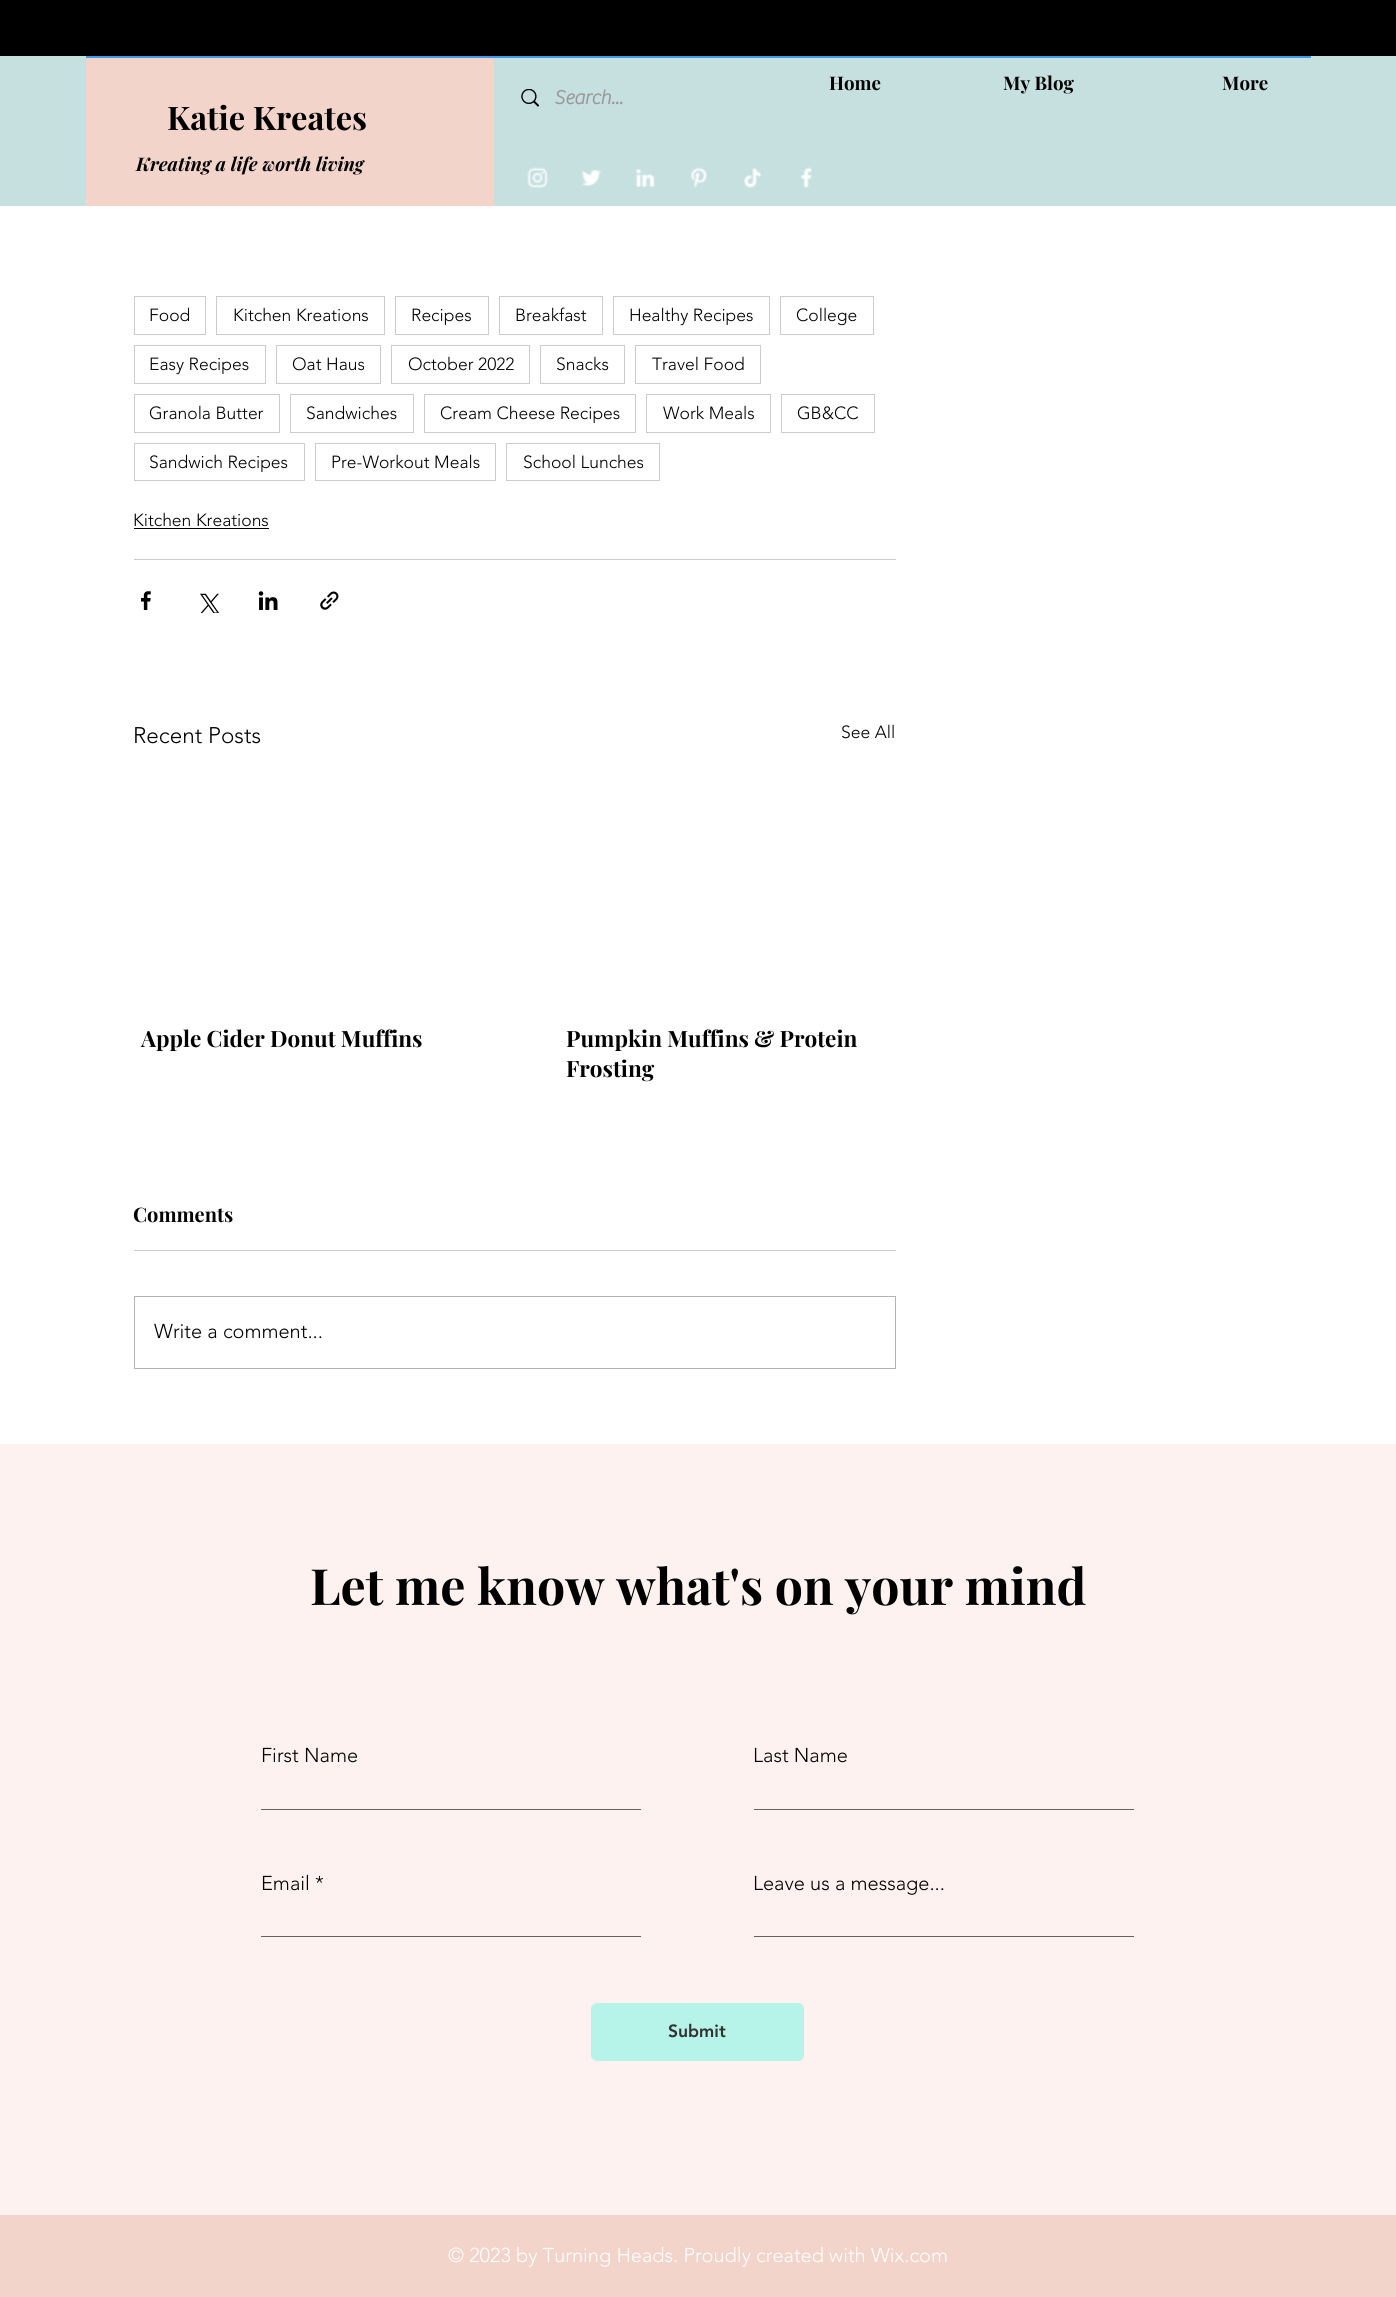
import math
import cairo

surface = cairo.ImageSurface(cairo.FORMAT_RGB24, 1396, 2297)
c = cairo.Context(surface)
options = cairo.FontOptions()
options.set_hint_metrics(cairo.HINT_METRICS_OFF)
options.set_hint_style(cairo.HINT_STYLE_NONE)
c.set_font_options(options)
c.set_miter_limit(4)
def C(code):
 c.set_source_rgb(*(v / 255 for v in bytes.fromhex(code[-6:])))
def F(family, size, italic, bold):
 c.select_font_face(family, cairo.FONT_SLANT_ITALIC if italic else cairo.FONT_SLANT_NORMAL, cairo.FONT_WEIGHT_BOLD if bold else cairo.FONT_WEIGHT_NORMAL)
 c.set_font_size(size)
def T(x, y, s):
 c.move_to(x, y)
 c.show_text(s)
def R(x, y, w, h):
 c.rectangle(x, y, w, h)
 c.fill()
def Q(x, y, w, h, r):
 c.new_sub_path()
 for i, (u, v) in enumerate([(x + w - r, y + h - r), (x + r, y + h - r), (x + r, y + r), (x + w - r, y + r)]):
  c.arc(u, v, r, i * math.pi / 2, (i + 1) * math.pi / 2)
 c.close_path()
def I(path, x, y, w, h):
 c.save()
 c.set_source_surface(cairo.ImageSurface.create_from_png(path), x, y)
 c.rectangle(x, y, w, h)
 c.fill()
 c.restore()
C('ffffff')
c.paint()
C('c6dfdf')
R(0,56,1396,150)
C('3d9be9')
R(86,56,1225,2)
C('000000')
R(0,0,1396,56)
F('Playfair Display',18.75,0,1)
T(829,90,'Home')
T(1003,90,'My Blog')
T(1222,90,'More')
I('1.png',521,89,18,18)
F('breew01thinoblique',20,0,1)
C('999999')
T(554,104,'Search...')
I('2.png',527,167,21,21)
I('3.png',582,169,19,18)
I('4.png',635,168,20,20)
I('5.png',690,167,17,21)
I('6.png',743,167,19,21)
I('7.png',800,167,12,21)
C('f2d4ca')
R(86,58,408,148)
F('Playfair Display',32.5,0,1)
C('000000')
T(167,130,'Katie Kreates')
F('Playfair Display',18.75,1,1)
T(136,171,'Kreating a life worth living')
c.rectangle(134.5,296.5,71,38)
C('cccccc')
c.set_line_width(1)
c.stroke()
F('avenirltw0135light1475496 Light',17.5,0,0)
C('000000')
T(149,321,'Food')
c.rectangle(216.5,296.5,168,38)
C('cccccc')
c.stroke()
C('000000')
T(233,321,'Kitchen Kreations')
c.rectangle(395.5,296.5,93,38)
C('cccccc')
c.stroke()
C('000000')
T(411,321,'Recipes')
c.rectangle(499.5,296.5,103,38)
C('cccccc')
c.stroke()
C('000000')
T(515,321,'Breakfast')
c.rectangle(613.5,296.5,156,38)
C('cccccc')
c.stroke()
C('000000')
T(629,321,'Healthy Recipes')
c.rectangle(780.5,296.5,93,38)
C('cccccc')
c.stroke()
C('000000')
T(796,321,'College')
c.rectangle(134.5,345.5,131,38)
C('cccccc')
c.stroke()
C('000000')
T(149,370,'Easy Recipes')
c.rectangle(276.5,345.5,104,38)
C('cccccc')
c.stroke()
C('000000')
T(292,370,'Oat Haus')
c.rectangle(391.5,345.5,138,38)
C('cccccc')
c.stroke()
C('000000')
T(408,370,'October 2022')
c.rectangle(540.5,345.5,84,38)
C('cccccc')
c.stroke()
C('000000')
T(556,370,'Snacks')
c.rectangle(635.5,345.5,125,38)
C('cccccc')
c.stroke()
C('000000')
T(652,370,'Travel Food')
c.rectangle(134.5,394.5,145,38)
C('cccccc')
c.stroke()
C('000000')
T(149,419,'Granola Butter')
c.rectangle(290.5,394.5,123,38)
C('cccccc')
c.stroke()
C('000000')
T(306,419,'Sandwiches')
c.rectangle(424.5,394.5,211,38)
C('cccccc')
c.stroke()
C('000000')
T(440,419,'Cream Cheese Recipes')
c.rectangle(646.5,394.5,124,38)
C('cccccc')
c.stroke()
C('000000')
T(663,419,'Work Meals')
c.rectangle(781.5,394.5,93,38)
C('cccccc')
c.stroke()
C('000000')
T(797,419,'GB&CC')
c.rectangle(134.5,443.5,170,37)
C('cccccc')
c.stroke()
C('000000')
T(149,468,'Sandwich Recipes')
c.rectangle(315.5,443.5,180,37)
C('cccccc')
c.stroke()
C('000000')
T(331,468,'Pre-Workout Meals')
c.rectangle(506.5,443.5,153,37)
C('cccccc')
c.stroke()
C('000000')
T(523,468,'School Lunches')
T(133,526,'Kitchen Kreations')
R(134,528,135,1)
C('cccccc')
R(134,559,762,1)
I('8.png',141,591,10,19)
I('9.png',200,593,19,20)
I('10.png',258,591,20,19)
I('11.png',320,591,19,19)
F('avenirltw0135light1475496 Light',22.5,0,0)
C('000000')
T(133,743,'Recent Posts')
F('avenirltw0135light1475496 Light',17.5,0,0)
T(841,738,'See All')
F('Playfair Display',22.5,0,1)
T(141,1047,'Apple Cider Donut Muffins')
T(566,1047,'Pumpkin Muffins & Protein')
T(566,1077,'Frosting')
F('Playfair Display',20,0,1)
T(133,1222,'Comments')
C('cccccc')
R(134,1250,762,1)
c.rectangle(134.5,1296.5,761,72)
C('b3b3b3')
c.stroke()
F('avenirltw0135light1475496 Light',20,0,0)
C('000000')
T(154,1338,'Write a comment...')
C('fef2f0')
R(0,1444,1396,771)
F('Playfair Display',50,0,1)
C('000000')
T(310,1605,'Let me know what\'s on your mind')
F('avenirltw0135light1475496 Light',20,0,0)
T(261,1762,'First Name')
C('666160')
R(261,1809,380,1)
C('000000')
T(753,1762,'Last Name')
C('666160')
R(754,1809,380,1)
C('000000')
T(261,1890,'Email *')
C('666160')
R(261,1936,380,1)
C('000000')
T(753,1890,'Leave us a message...')
C('666160')
R(754,1936,380,1)
C('b6f3e8')
Q(591,2003,213,58,6)
c.fill()
F('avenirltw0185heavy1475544 Black',17.5,0,0)
C('323232')
T(668,2037,'Submit')
C('f2d4ca')
R(0,2215,1396,82)
F('avenirltw0135light1475496 Light',20,0,0)
C('ffffff')
T(448,2262,'© 2023 by Turning Heads. Proudly created with Wix.com')
surface.write_to_png('o.png')
